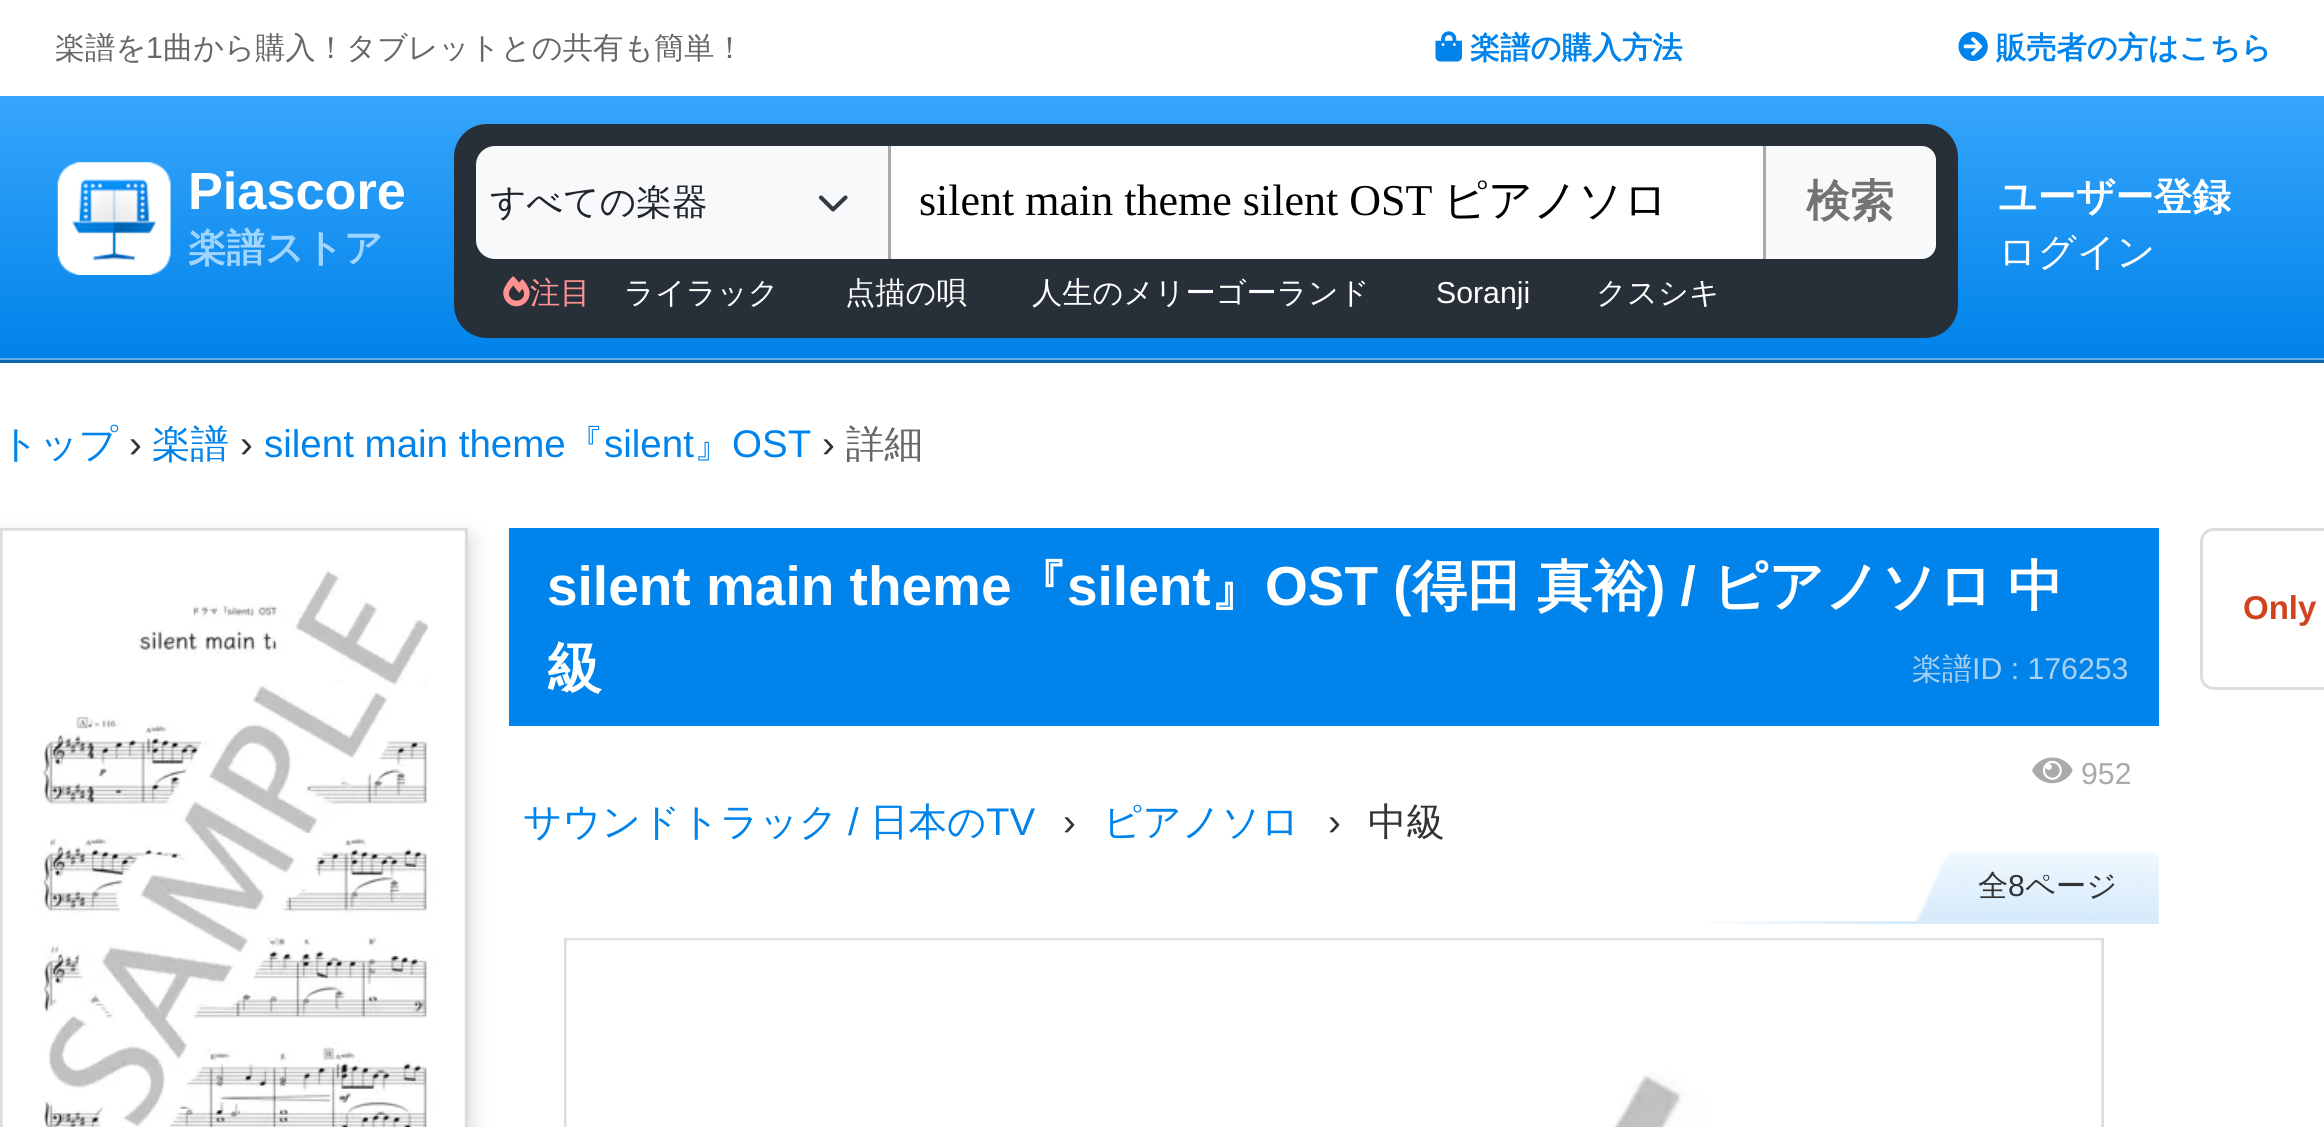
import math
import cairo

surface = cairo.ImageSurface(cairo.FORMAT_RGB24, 2324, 1127)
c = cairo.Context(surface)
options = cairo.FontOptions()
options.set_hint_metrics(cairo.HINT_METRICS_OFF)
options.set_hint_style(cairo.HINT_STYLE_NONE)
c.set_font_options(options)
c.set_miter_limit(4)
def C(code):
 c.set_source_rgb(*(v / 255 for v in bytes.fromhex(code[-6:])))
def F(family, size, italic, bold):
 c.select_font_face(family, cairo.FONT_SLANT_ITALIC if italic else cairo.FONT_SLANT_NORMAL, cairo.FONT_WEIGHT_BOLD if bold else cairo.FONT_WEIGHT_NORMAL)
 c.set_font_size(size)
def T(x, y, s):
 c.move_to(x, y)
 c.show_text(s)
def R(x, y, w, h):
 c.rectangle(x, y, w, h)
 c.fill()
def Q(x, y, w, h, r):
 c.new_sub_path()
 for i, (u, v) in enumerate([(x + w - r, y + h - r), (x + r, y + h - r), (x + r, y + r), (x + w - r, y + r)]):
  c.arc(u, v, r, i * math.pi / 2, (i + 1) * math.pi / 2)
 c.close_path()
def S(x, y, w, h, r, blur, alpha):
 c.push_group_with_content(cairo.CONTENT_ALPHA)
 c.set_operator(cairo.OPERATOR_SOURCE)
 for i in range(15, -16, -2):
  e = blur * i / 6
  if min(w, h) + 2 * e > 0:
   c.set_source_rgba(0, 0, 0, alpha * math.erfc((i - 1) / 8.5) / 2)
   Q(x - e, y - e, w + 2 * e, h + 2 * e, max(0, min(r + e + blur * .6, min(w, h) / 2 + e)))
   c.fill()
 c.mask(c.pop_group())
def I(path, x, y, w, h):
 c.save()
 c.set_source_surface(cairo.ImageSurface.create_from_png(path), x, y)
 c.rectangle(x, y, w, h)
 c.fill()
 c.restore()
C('ffffff')
c.paint()
F('WenQuanYi Zen Hei Medium',30.25,0,0)
C('676767')
T(55,58,'楽譜を')
F('Liberation Sans',30.25,0,0)
T(146,58,'1')
F('WenQuanYi Zen Hei Medium',30.25,0,0)
T(163,58,'曲から購入！タブレットとの共有も簡単！')
I('1.png',1435,31,27,31)
F('WenQuanYi Zen Hei',30.25,0,1)
C('0083ea')
T(1470,58,'楽譜の購入方法')
I('2.png',1958,31,30,31)
T(1996,58,'販売者の方はこちら')
gradient = cairo.LinearGradient(1163,96,1163,358)
gradient.add_color_stop_rgba(0,0.216,0.647,0.984,1)
gradient.add_color_stop_rgba(1,0,0.514,0.918,1)
c.set_source(gradient)
R(0,96,2324,262)
I('3.png',57,162,114,113)
F('Liberation Sans',52.25,0,1)
C('ffffff')
T(188,209,'Piascore')
F('WenQuanYi Zen Hei',38.5,0,1)
C('9fd5ff')
T(188,261,'楽譜ストア')
C('273038')
Q(454,124,1504,214,33)
c.fill()
C('f8f9fa')
c.new_path()
c.move_to(495,146)
c.line_to(888,146)
c.line_to(888,259)
c.line_to(495,259)
c.curve_to(484.5,259,476,250.5,476,240)
c.line_to(476,165)
c.curve_to(476,154.5,484.5,146,495,146)
c.close_path()
c.fill()
c.new_path()
c.move_to(821,197.5)
c.line_to(833,209.5)
c.line_to(845.5,197.5)
C('343a40')
c.set_line_width(4.1)
c.set_line_cap(cairo.LINE_CAP_ROUND)
c.set_line_join(cairo.LINE_JOIN_ROUND)
c.stroke()
F('WenQuanYi Zen Hei Medium',35.75,0,0)
C('212529')
T(490,214,'すべての楽器')
C('ffffff')
R(891,146,872,113)
C('aaaaaa')
R(888,146,3,113)
F('Liberation Serif',44,0,0)
C('000000')
T(919,215,'silent main theme silent OST')
F('WenQuanYi Zen Hei Medium',44,0,0)
T(1443,215,'ピアノソロ')
C('f8f9fa')
c.new_path()
c.move_to(1766,146)
c.line_to(1922,146)
c.curve_to(1929.5,146,1936,152.5,1936,160)
c.line_to(1936,245)
c.curve_to(1936,252.5,1929.5,259,1922,259)
c.line_to(1766,259)
c.close_path()
c.fill()
C('aaaaaa')
R(1763,146,3,113)
F('WenQuanYi Zen Hei',44,0,1)
C('747272')
T(1806,216,'検索')
I('4.png',503,276,27,31)
F('WenQuanYi Zen Hei Medium',30.25,0,0)
C('ff9191')
T(530,303,'注目')
C('ffffff')
T(624,303,'ライラック')
T(845,303,'点描の唄')
T(1032,303,'人生のメリーゴーランド')
F('Liberation Sans',30.25,0,0)
T(1436,303,'Soranji')
F('WenQuanYi Zen Hei Medium',30.25,0,0)
T(1596,303,'クスシキ')
F('WenQuanYi Zen Hei',38.5,0,1)
T(1998,210,'ユーザー登録')
F('WenQuanYi Zen Hei Medium',38.5,0,0)
T(1998,265,'ログイン')
C('62ade7')
R(0,358,2324,2)
C('0c66ad')
R(0,360,2324,3)
C('0083ea')
T(0,457,'トップ')
F('Liberation Sans',38.5,0,0)
C('333333')
T(129,457,'›')
F('WenQuanYi Zen Hei Medium',38.5,0,0)
C('0083ea')
T(152,457,'楽譜')
F('Liberation Sans',38.5,0,0)
C('333333')
T(240,457,'›')
C('0083ea')
T(264,457,'silent main theme')
F('WenQuanYi Zen Hei Medium',38.5,0,0)
T(565,457,'『')
F('Liberation Sans',38.5,0,0)
T(604,457,'silent')
F('WenQuanYi Zen Hei Medium',38.5,0,0)
T(694,457,'』')
F('Liberation Sans',38.5,0,0)
T(732,457,'OST')
C('333333')
T(822,457,'›')
F('WenQuanYi Zen Hei Medium',38.5,0,0)
C('676767')
T(846,457,'詳細')
C('000000')
S(0,539,468,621,0,11,.2)
c.rectangle(1.5,529.5,465,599)
C('dddddd')
c.set_line_width(3)
c.set_line_cap(cairo.LINE_CAP_BUTT)
c.set_line_join(cairo.LINE_JOIN_MITER)
c.stroke()
I('5.png',2,530,463,597)
C('0083ea')
R(509,528,1650,198)
F('Liberation Sans',55,0,1)
C('ffffff')
T(547,605,'silent main theme')
F('WenQuanYi Zen Hei',55,0,1)
T(1012,605,'『')
F('Liberation Sans',55,0,1)
T(1067,605,'silent')
F('WenQuanYi Zen Hei',55,0,1)
T(1210,605,'』')
F('Liberation Sans',55,0,1)
T(1265,605,'OST (')
F('WenQuanYi Zen Hei',55,0,1)
T(1412,605,'得田')
T(1537,605,'真裕')
F('Liberation Sans',55,0,1)
T(1647,605,') /')
F('WenQuanYi Zen Hei',55,0,1)
T(1712,605,'ピアノソロ')
T(2008,605,'中')
T(547,687,'級')
F('WenQuanYi Zen Hei Medium',30.25,0,0)
C('aad1ef')
T(1912,679,'楽譜')
F('Liberation Sans',30.25,0,0)
T(1972,679,'ID : 176253')
I('6.png',2032,757,41,27)
C('aaaaaa')
T(2081,784,'952')
F('WenQuanYi Zen Hei Medium',38.5,0,0)
C('0083ea')
T(523,835,'サウンドトラック')
F('Liberation Sans',38.5,0,0)
T(848,835,'/')
F('WenQuanYi Zen Hei Medium',38.5,0,0)
T(870,835,'日本の')
F('Liberation Sans',38.5,0,0)
T(986,835,'TV')
C('333333')
T(1063,835,'›')
F('WenQuanYi Zen Hei Medium',38.5,0,0)
C('0083ea')
T(1103,835,'ピアノソロ')
F('Liberation Sans',38.5,0,0)
C('333333')
T(1328,835,'›')
F('WenQuanYi Zen Hei Medium',38.5,0,0)
T(1368,835,'中級')
I('7.png',1916,852,243,70)
F('WenQuanYi Zen Hei Medium',30.25,0,0)
T(1978,896,'全')
F('Liberation Sans',30.25,0,0)
T(2008,896,'8')
F('WenQuanYi Zen Hei Medium',30.25,0,0)
T(2025,896,'ページ')
I('8.png',1707,921,452,3)
c.rectangle(565.5,939.5,1537,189)
C('dddddd')
c.stroke()
I('9.png',566,939,1536,188)
Q(2201.5,529.5,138,159,12.5)
c.stroke()
F('Liberation Sans',33,0,1)
C('cf431e')
T(2243,619,'Only')
surface.write_to_png('o.png')
